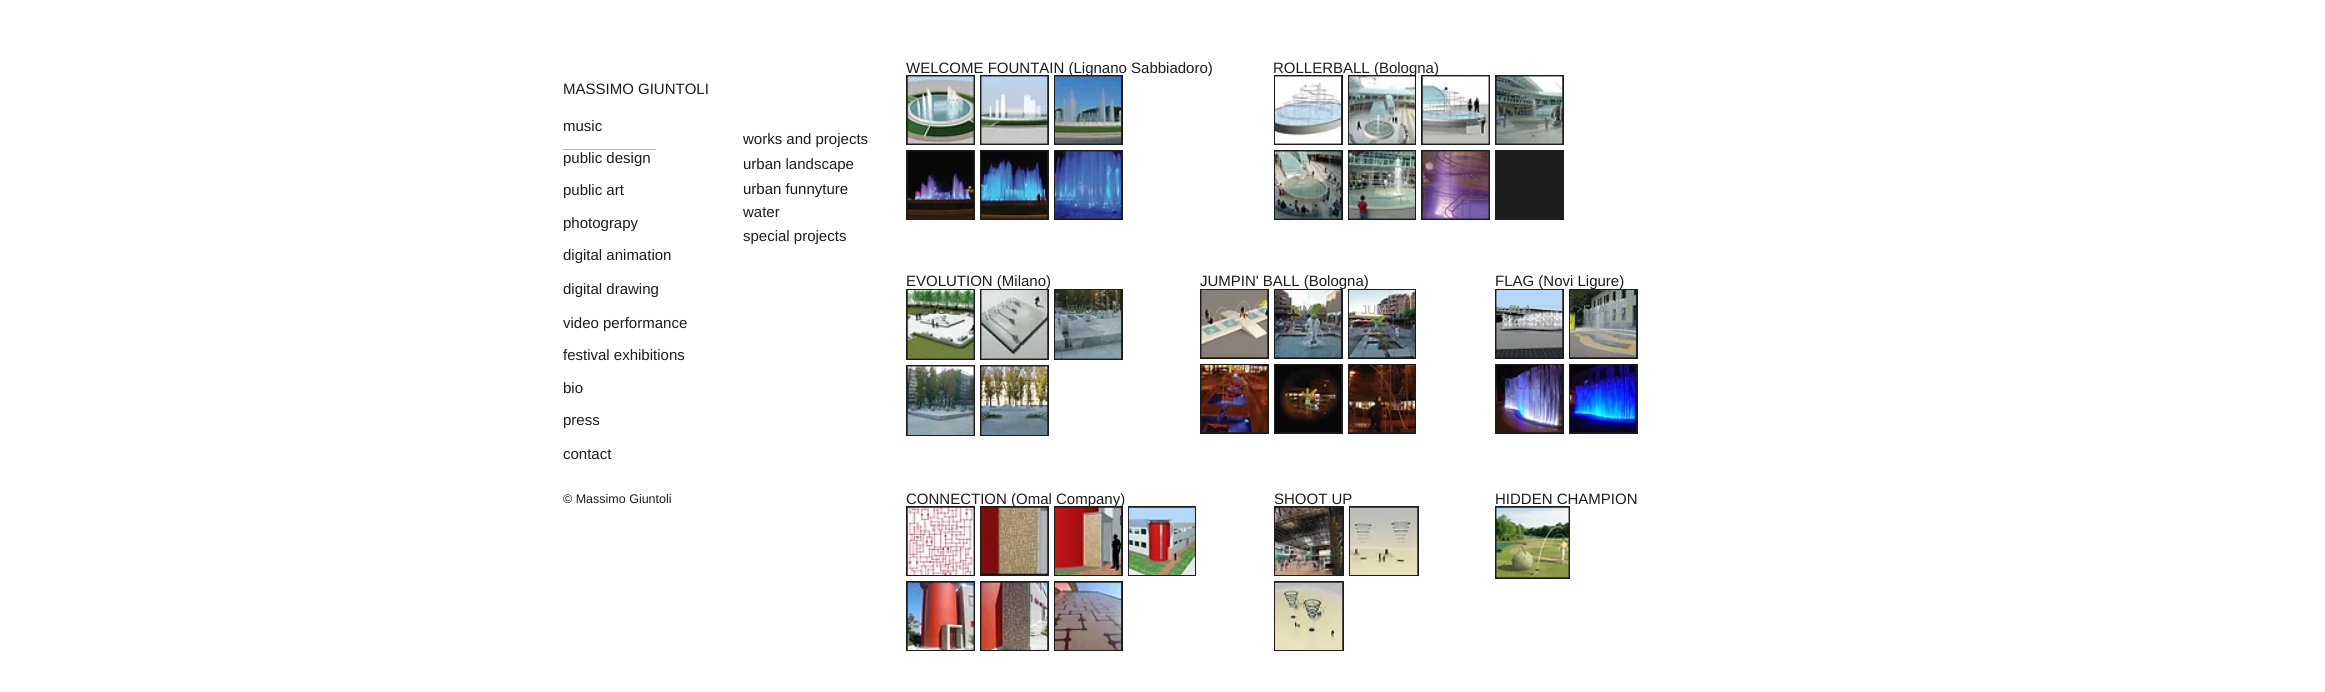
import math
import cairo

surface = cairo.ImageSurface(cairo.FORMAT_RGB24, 2325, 692)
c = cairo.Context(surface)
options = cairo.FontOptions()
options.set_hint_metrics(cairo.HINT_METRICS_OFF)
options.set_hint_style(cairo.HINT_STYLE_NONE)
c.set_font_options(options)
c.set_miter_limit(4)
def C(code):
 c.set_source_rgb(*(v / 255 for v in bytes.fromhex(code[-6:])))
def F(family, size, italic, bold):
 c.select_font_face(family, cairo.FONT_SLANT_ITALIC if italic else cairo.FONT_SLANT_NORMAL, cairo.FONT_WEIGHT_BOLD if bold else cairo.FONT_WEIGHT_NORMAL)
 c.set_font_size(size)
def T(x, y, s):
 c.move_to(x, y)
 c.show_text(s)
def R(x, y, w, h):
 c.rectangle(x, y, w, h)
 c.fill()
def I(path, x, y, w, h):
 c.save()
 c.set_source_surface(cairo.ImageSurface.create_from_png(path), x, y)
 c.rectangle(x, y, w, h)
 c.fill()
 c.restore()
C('ffffff')
c.paint()
F('Liberation Sans',15,0,0)
C('1c1c1c')
T(563,94,'MASSIMO GIUNTOLI')
T(563,131,'music')
T(563,163,'public design')
T(563,195,'public art')
T(563,228,'photograpy')
T(563,260,'digital animation')
T(563,294,'digital drawing')
T(563,328,'video performance')
T(563,360,'festival exhibitions')
T(563,393,'bio')
T(563,425,'press')
T(563,459,'contact')
F('Liberation Sans',12.5,0,0)
T(563,503,'© Massimo Giuntoli')
R(906,75,69,70)
I('1.png',907,76,67,68)
R(980,75,69,70)
I('2.png',981,76,67,68)
R(1054,75,69,70)
I('3.png',1055,76,67,68)
F('Liberation Sans',15,0,0)
T(906,73,'WELCOME FOUNTAIN (Lignano Sabbiadoro)')
R(1274,75,69,70)
I('7.png',1275,76,67,68)
R(1348,75,68,70)
I('8.png',1348,76,67,68)
R(1421,75,69,70)
I('9.png',1422,76,67,68)
T(1273,73,'ROLLERBALL (Bologna)')
T(743,144,'works and projects')
F('Liberation Sans',12.5,0,0)
C('849690')
T(947,101,'…')
C('1c1c1c')
R(906,150,69,70)
I('4.png',907,151,67,68)
R(980,150,69,70)
I('5.png',981,151,67,68)
R(1054,150,69,70)
I('6.png',1055,151,67,68)
C('7b8c8c')
T(1387,101,'…')
C('bdcace')
T(1461,101,'…')
C('1c1c1c')
R(1495,75,69,70)
I('10.png',1496,76,67,68)
R(1274,150,69,70)
I('11.png',1275,151,67,68)
R(1348,150,68,70)
I('12.png',1348,151,67,68)
R(1421,150,69,70)
I('13.png',1422,151,67,68)
C('845d8b')
T(1461,176,'…')
C('1c1c1c')
R(1495,150,69,70)
C('b9b1b1')
R(563,149,93,1)
F('Liberation Sans',15,0,0)
C('1c1c1c')
T(743,169,'urban landscape')
T(743,194,'urban funnyture')
T(743,217,'water')
T(743,241,'special projects')
R(906,289,69,71)
R(980,289,69,71)
T(906,286,'EVOLUTION (Milano)')
R(1200,289,69,70)
R(1274,289,69,70)
R(1348,289,68,70)
T(1200,286,'JUMPIN\' BALL (Bologna)')
R(1495,289,69,70)
R(1569,289,69,70)
T(1495,286,'FLAG (Novi Ligure)')
I('14.png',907,290,67,69)
F('Liberation Sans',12.5,0,0)
C('565e47')
T(920,314,'EVO…')
I('15.png',981,290,67,69)
C('1c1c1c')
R(1054,289,69,71)
I('16.png',1055,290,67,69)
C('505c52')
T(1067,314,'EVO…')
C('1c1c1c')
R(906,365,69,71)
I('17.png',907,366,67,69)
R(980,365,69,71)
I('18.png',981,366,67,69)
C('8c8361')
T(994,391,'EVO…')
I('19.png',1201,290,67,68)
C('9c9387')
T(1239,314,'…')
I('20.png',1275,290,67,68)
C('878d77')
T(1287,314,'JUM…')
I('21.png',1348,290,67,68)
C('b4afaa')
T(1361,314,'JUM…')
C('1c1c1c')
R(1200,364,69,70)
I('22.png',1201,365,67,68)
R(1274,364,69,70)
I('23.png',1275,365,66,68)
R(1348,364,68,70)
I('24.png',1348,365,67,68)
I('25.png',1496,290,67,68)
C('838d8b')
T(1509,314,'FLA…')
I('26.png',1570,290,67,68)
C('7b8c8c')
T(1583,314,'FLA…')
C('1c1c1c')
R(1495,364,69,70)
I('27.png',1496,365,67,68)
C('595ab0')
T(1509,389,'FLA…')
C('1c1c1c')
R(1569,364,69,70)
I('28.png',1570,365,67,68)
C('1a1ba7')
T(1583,389,'FLA…')
C('1c1c1c')
R(906,506,69,70)
I('29.png',907,507,67,68)
R(980,506,69,70)
I('30.png',981,507,67,68)
R(1054,506,69,70)
I('31.png',1055,507,67,68)
F('Liberation Sans',15,0,0)
T(906,504,'CONNECTION (Omal Company)')
T(1274,504,'SHOOT UP')
T(1495,504,'HIDDEN CHAMPION')
R(1128,506,68,70)
I('32.png',1128,507,67,68)
R(906,581,69,70)
I('33.png',907,582,67,68)
R(980,581,69,70)
I('34.png',981,582,67,68)
R(1054,581,69,70)
I('35.png',1055,582,67,68)
R(1274,506,70,70)
I('36.png',1275,507,68,68)
F('Liberation Sans',12.5,0,0)
C('35302a')
T(1315,533,'…')
C('1c1c1c')
R(1349,506,70,70)
I('37.png',1350,507,68,68)
R(1274,581,70,70)
I('38.png',1275,582,68,68)
C('a6a88c')
T(1288,608,'SHO…')
C('1c1c1c')
R(1495,506,75,73)
I('39.png',1496,507,73,71)
surface.write_to_png('o.png')
